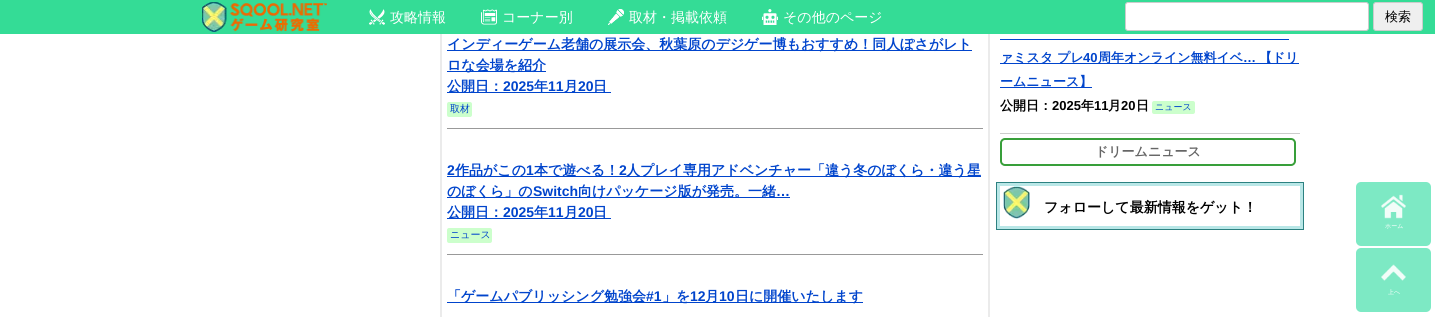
import math
import cairo

surface = cairo.ImageSurface(cairo.FORMAT_RGB24, 1435, 317)
c = cairo.Context(surface)
options = cairo.FontOptions()
options.set_hint_metrics(cairo.HINT_METRICS_OFF)
options.set_hint_style(cairo.HINT_STYLE_NONE)
c.set_font_options(options)
c.set_miter_limit(4)
def C(code):
 c.set_source_rgb(*(v / 255 for v in bytes.fromhex(code[-6:])))
def F(family, size, italic, bold):
 c.select_font_face(family, cairo.FONT_SLANT_ITALIC if italic else cairo.FONT_SLANT_NORMAL, cairo.FONT_WEIGHT_BOLD if bold else cairo.FONT_WEIGHT_NORMAL)
 c.set_font_size(size)
def T(x, y, s):
 c.move_to(x, y)
 c.show_text(s)
def R(x, y, w, h):
 c.rectangle(x, y, w, h)
 c.fill()
def Q(x, y, w, h, r):
 c.new_sub_path()
 for i, (u, v) in enumerate([(x + w - r, y + h - r), (x + r, y + h - r), (x + r, y + r), (x + w - r, y + r)]):
  c.arc(u, v, r, i * math.pi / 2, (i + 1) * math.pi / 2)
 c.close_path()
def I(path, x, y, w, h):
 c.save()
 c.set_source_surface(cairo.ImageSurface.create_from_png(path), x, y)
 c.rectangle(x, y, w, h)
 c.fill()
 c.restore()
C('ffffff')
c.paint()
c.rectangle(441,-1,548,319)
C('ebebeb')
c.stroke()
C('34dc96')
R(0,0,1435,34)
I('1.png',202,2,125,30)
I('2.png',369,9,16,16)
F('WenQuanYi Zen Hei Medium',14,0,0)
C('ffffff')
T(390,22,'攻略情報')
I('3.png',481,9,16,16)
T(502,22,'コーナー別')
I('4.png',608,9,16,16)
T(629,22,'取材・掲載依頼')
I('5.png',762,9,16,16)
T(783,22,'その他のページ')
Q(1125.5,2.5,243,28,2.5)
c.fill_preserve()
C('cccccc')
c.set_line_width(1)
c.stroke()
C('efefef')
Q(1373.5,2.5,49,28,2.5)
c.fill_preserve()
C('cccccc')
c.stroke()
F('WenQuanYi Zen Hei Medium',13,0,0)
C('000000')
T(1385,21,'検索')
C('0044cc')
R(447,50,525,1)
F('WenQuanYi Zen Hei',14,0,1)
T(447,49,'インディーゲーム老舗の展示会、秋葉原のデジゲー博もおすすめ！同人ぽさがレト')
R(447,71,99,1)
T(447,70,'ロな会場を紹介')
R(447,92,164,1)
T(447,91,'公開日：')
F('Liberation Sans',14,0,1)
T(503,91,'2025')
F('WenQuanYi Zen Hei',14,0,1)
T(534,91,'年')
F('Liberation Sans',14,0,1)
T(548,91,'11')
F('WenQuanYi Zen Hei',14,0,1)
T(564,91,'月')
F('Liberation Sans',14,0,1)
T(578,91,'20')
F('WenQuanYi Zen Hei',14,0,1)
T(593,91,'日')
C('ccffcc')
Q(447,102,25,15,2)
c.fill()
F('WenQuanYi Zen Hei Medium',10,0,0)
C('0044cc')
T(450,112,'取材')
C('999999')
R(447,128,536,1)
F('Liberation Sans',14,0,1)
C('0044cc')
T(447,175,'2')
R(447,176,534,1)
F('WenQuanYi Zen Hei',14,0,1)
T(455,175,'作品がこの')
F('Liberation Sans',14,0,1)
T(526,175,'1')
F('WenQuanYi Zen Hei',14,0,1)
T(534,175,'本で遊べる！')
F('Liberation Sans',14,0,1)
T(619,175,'2')
F('WenQuanYi Zen Hei',14,0,1)
T(626,175,'人プレイ専用アドベンチャー「違う冬のぼくら・違う星')
R(447,197,343,1)
T(447,196,'のぼくら」の')
F('Liberation Sans',14,0,1)
T(533,196,'Switch')
F('WenQuanYi Zen Hei',14,0,1)
T(578,196,'向けパッケージ版が発売。一緒')
F('Liberation Sans',14,0,1)
T(776,196,'…')
R(447,218,164,1)
F('WenQuanYi Zen Hei',14,0,1)
T(447,217,'公開日：')
F('Liberation Sans',14,0,1)
T(503,217,'2025')
F('WenQuanYi Zen Hei',14,0,1)
T(534,217,'年')
F('Liberation Sans',14,0,1)
T(548,217,'11')
F('WenQuanYi Zen Hei',14,0,1)
T(564,217,'月')
F('Liberation Sans',14,0,1)
T(578,217,'20')
F('WenQuanYi Zen Hei',14,0,1)
T(593,217,'日')
C('ccffcc')
Q(447,228,45,15,2)
c.fill()
F('WenQuanYi Zen Hei Medium',10,0,0)
C('0044cc')
T(450,238,'ニュース')
C('999999')
R(447,254,536,1)
C('0044cc')
R(447,302,416,1)
F('WenQuanYi Zen Hei',14,0,1)
T(447,301,'「ゲームパブリッシング勉強会')
F('Liberation Sans',14,0,1)
T(646,301,'#1')
F('WenQuanYi Zen Hei',14,0,1)
T(662,301,'」を')
F('Liberation Sans',14,0,1)
T(690,301,'12')
F('WenQuanYi Zen Hei',14,0,1)
T(705,301,'月')
F('Liberation Sans',14,0,1)
T(719,301,'10')
F('WenQuanYi Zen Hei',14,0,1)
T(735,301,'日に開催いたします')
C('cccccc')
R(1000,133,300,1)
C('0044cc')
R(1000,63,299,1)
F('WenQuanYi Zen Hei',13,0,1)
T(1000,62,'ァミスタ プレ')
R(1000,39,289,1)
F('Liberation Sans',13,0,1)
T(1083,62,'40')
F('WenQuanYi Zen Hei',13,0,1)
T(1098,62,'周年オンライン無料イベ')
F('Liberation Sans',13,0,1)
T(1243,62,'…')
F('WenQuanYi Zen Hei',13,0,1)
T(1259,62,'【ドリ')
R(1000,87,92,1)
T(1000,86,'ームニュース】')
C('000000')
T(1000,110,'公開日：')
F('Liberation Sans',13,0,1)
T(1052,110,'2025')
F('WenQuanYi Zen Hei',13,0,1)
T(1081,110,'年')
F('Liberation Sans',13,0,1)
T(1094,110,'11')
F('WenQuanYi Zen Hei',13,0,1)
T(1108,110,'月')
F('Liberation Sans',13,0,1)
T(1121,110,'20')
F('WenQuanYi Zen Hei',13,0,1)
T(1136,110,'日')
C('ccffcc')
Q(1152,101,43,13,2)
c.fill()
F('WenQuanYi Zen Hei Medium',9,0,0)
C('0044cc')
T(1155,110,'ニュース')
Q(1001,139,294,26,4)
C('389f3a')
c.set_line_width(2)
c.stroke()
F('WenQuanYi Zen Hei',13,0,1)
C('666666')
T(1095,156,'ドリームニュース')
c.rectangle(998,184,304,44)
C('2c8181')
c.set_line_width(4)
c.stroke()
c.rectangle(998.5,184.5,303,43)
C('b9e7e7')
c.set_line_width(3)
c.stroke()
I('6.png',1003,186,27,33)
F('WenQuanYi Zen Hei',14,0,1)
C('000000')
T(1044,212,'フォローして最新情報をゲット！')
C('7de9c4')
Q(1356,182,75,64,5)
c.fill()
I('7.png',1381,194,25,25)
F('WenQuanYi Zen Hei Medium',6,0,0)
C('ffffff')
T(1385,228,'ホーム')
C('7de9c4')
Q(1356,248,75,64,5)
c.fill()
I('8.png',1381,264,25,17)
C('ffffff')
T(1388,294,'上へ')
surface.write_to_png('o.png')
